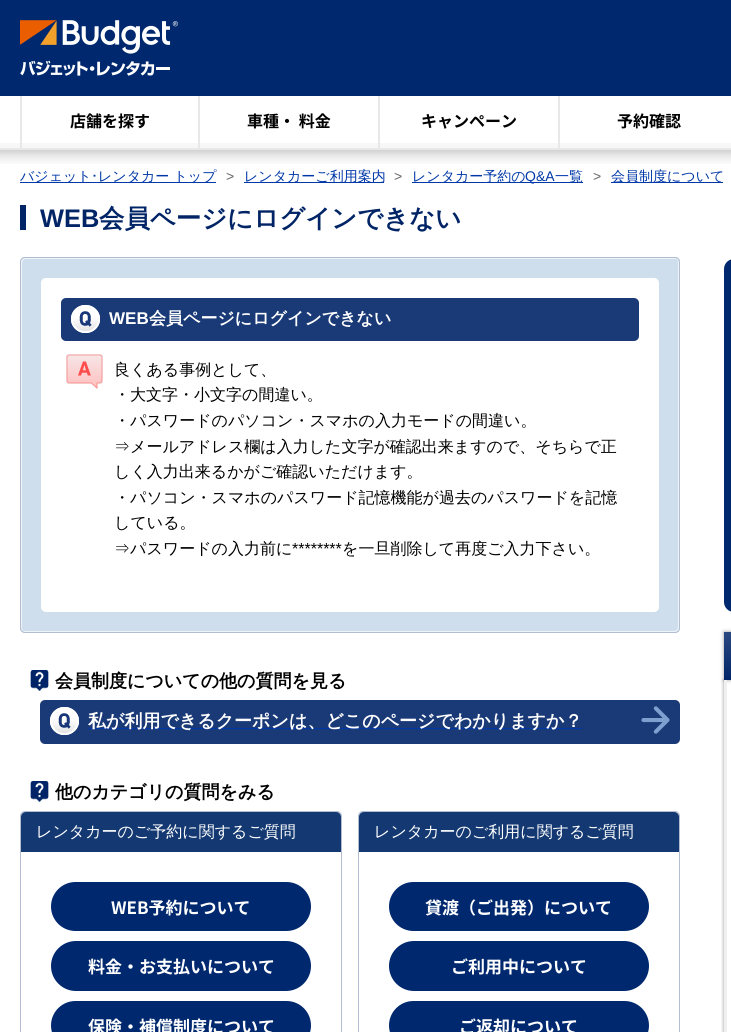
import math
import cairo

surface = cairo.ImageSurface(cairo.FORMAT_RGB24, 731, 1032)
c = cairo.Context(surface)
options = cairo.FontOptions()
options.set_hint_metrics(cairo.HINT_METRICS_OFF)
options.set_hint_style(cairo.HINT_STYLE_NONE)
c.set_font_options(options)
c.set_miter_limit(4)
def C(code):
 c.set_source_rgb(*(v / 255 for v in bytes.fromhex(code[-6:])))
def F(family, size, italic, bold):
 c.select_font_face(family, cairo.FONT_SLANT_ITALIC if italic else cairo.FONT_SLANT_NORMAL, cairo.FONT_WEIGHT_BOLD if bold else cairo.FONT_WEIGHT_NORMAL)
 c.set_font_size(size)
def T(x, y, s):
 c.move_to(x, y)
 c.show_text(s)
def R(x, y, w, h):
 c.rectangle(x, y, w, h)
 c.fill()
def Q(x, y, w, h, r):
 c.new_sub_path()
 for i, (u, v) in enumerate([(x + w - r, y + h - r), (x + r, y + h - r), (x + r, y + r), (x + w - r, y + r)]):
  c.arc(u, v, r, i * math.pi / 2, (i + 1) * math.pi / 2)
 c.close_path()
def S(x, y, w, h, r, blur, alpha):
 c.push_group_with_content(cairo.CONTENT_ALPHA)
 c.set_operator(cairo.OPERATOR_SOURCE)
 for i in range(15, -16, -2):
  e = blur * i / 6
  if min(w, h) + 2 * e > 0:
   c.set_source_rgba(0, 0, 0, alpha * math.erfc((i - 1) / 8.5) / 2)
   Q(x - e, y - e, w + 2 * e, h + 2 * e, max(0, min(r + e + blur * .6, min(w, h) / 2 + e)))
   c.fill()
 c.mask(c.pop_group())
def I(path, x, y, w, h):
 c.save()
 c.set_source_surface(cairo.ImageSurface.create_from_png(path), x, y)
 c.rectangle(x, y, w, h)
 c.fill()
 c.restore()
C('ffffff')
c.paint()
C('00286e')
R(0,0,731,96)
I('1.png',20,20,158,56)
C('e8e8e8')
R(198,96,2,54)
R(20,96,2,54)
F('Noto Sans JP',16,0,1)
C('000000')
T(70,127,'店舗を探す')
C('f7f7f7')
R(22,143,176,5)
C('e8e8e8')
R(22,148,176,2)
R(378,96,2,54)
C('000000')
T(247,127,'車種・ 料金')
C('f7f7f7')
R(200,143,178,5)
C('e8e8e8')
R(200,148,178,2)
R(558,96,2,54)
C('000000')
T(421,127,'キャンペーン')
C('f7f7f7')
R(380,143,178,5)
C('e8e8e8')
R(380,148,178,2)
C('000000')
T(617,127,'予約確認')
C('f7f7f7')
R(560,143,171,5)
C('e8e8e8')
R(560,148,171,2)
C('f7f7f7')
R(0,143,20,5)
C('e8e8e8')
R(0,148,20,2)
I('2.png',0,150,731,14)
C('0038a7')
R(20,182,196,1)
F('WenQuanYi Zen Hei Medium',14,0,0)
T(20,181,'バジェット')
F('IPAPGothic',14,0,0)
T(91,181,'･')
F('WenQuanYi Zen Hei Medium',14,0,0)
T(98,181,'レンタカー トップ')
F('Liberation Sans',14,0,0)
C('666666')
T(226,181,'>')
C('0038a7')
R(244,182,140,1)
F('WenQuanYi Zen Hei Medium',14,0,0)
T(244,181,'レンタカーご利用案内')
F('Liberation Sans',14,0,0)
C('666666')
T(394,181,'>')
C('0038a7')
R(412,182,171,1)
F('WenQuanYi Zen Hei Medium',14,0,0)
T(412,181,'レンタカー予約の')
F('Liberation Sans',14,0,0)
T(525,181,'Q&A')
F('WenQuanYi Zen Hei Medium',14,0,0)
T(555,181,'一覧')
F('Liberation Sans',14,0,0)
C('666666')
T(593,181,'>')
C('0038a7')
R(611,182,112,1)
F('WenQuanYi Zen Hei Medium',14,0,0)
T(611,181,'会員制度について')
C('002466')
R(20,205,6,25)
F('Liberation Sans',25.4,0,1)
C('002465')
T(40,227,'WEB')
F('WenQuanYi Zen Hei',25.4,0,1)
T(99,227,'会員ページにログインできない')
C('cfdeec')
Q(20,257,660,376,5)
c.fill()
C('eef3f8')
c.new_path()
c.move_to(22,630)
c.curve_to(22,631,24,632,25,632)
c.line_to(675,632)
c.curve_to(677,632,679,630,679,628)
c.line_to(679,262)
c.curve_to(679,261,678,259,677,259)
c.line_to(678,261)
c.line_to(678,627)
c.curve_to(678,629,676,631,674,631)
c.line_to(24,631)
c.close_path()
c.fill()
c.set_source_rgba(1,1,1,0.65)
c.new_path()
c.move_to(26,259)
c.line_to(676,259)
c.line_to(678,260)
c.curve_to(678,259,676,258,675,258)
c.line_to(25,258)
c.curve_to(23,258,21,260,21,262)
c.line_to(21,628)
c.curve_to(21,629,22,631,23,631)
c.line_to(22,629)
c.line_to(22,263)
c.curve_to(22,261,24,259,26,259)
c.close_path()
c.fill()
Q(20.5,257.5,659,375,4.5)
C('b2bdd1')
c.set_line_width(1)
c.stroke()
C('ffffff')
Q(41,278,618,334,5)
c.fill()
C('1a3a77')
Q(61,298,578,43,5)
c.fill()
I('3.png',71,305,29,28)
F('Liberation Sans',17,0,1)
C('ffffff')
T(109,324,'WEB')
F('WenQuanYi Zen Hei',17,0,1)
T(149,324,'会員ページにログインできない')
I('4.png',66,354,37,35)
F('WenQuanYi Zen Hei Medium',16,0,0)
C('000000')
T(114,375,'良くある事例として、')
T(114,400,'・大文字・小文字の間違い。')
T(114,426,'・パスワードのパソコン・スマホの入力モードの間違い。')
T(114,452,'⇒メールアドレス欄は入力した文字が確認出来ますので、そちらで正')
T(114,477,'しく入力出来るかがご確認いただけます。')
T(114,503,'・パソコン・スマホのパスワード記憶機能が過去のパスワードを記憶')
T(114,528,'している。')
T(114,554,'⇒パスワードの入力前に')
F('Liberation Sans',16,0,0)
T(292,554,'********')
F('WenQuanYi Zen Hei Medium',16,0,0)
T(342,554,'を一旦削除して再度ご入力下さい。')
I('5.png',30,670,19,21)
F('WenQuanYi Zen Hei',18,0,1)
T(55,687,'会員制度についての他の質問を見る')
C('1a3a77')
Q(40,700,640,44,5)
c.fill()
I('6.png',50,707,532,28)
C('ffffff')
T(88,727,'私が利用できるクーポンは、どこのページでわかりますか？')
I('7.png',641,706,29,28)
I('5.png',30,781,19,21)
C('000000')
T(55,798,'他のカテゴリの質問をみる')
Q(20.5,811.5,321,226,4.5)
C('b2bdd1')
c.stroke()
C('143972')
c.new_path()
c.move_to(26,812)
c.line_to(336,812)
c.curve_to(339,812,341,814,341,817)
c.line_to(341,852)
c.line_to(21,852)
c.line_to(21,817)
c.curve_to(21,814,23,812,26,812)
c.close_path()
c.fill()
F('WenQuanYi Zen Hei Medium',16,0,0)
C('ffffff')
T(36,837,'レンタカーのご予約に関するご質問')
C('00286e')
Q(52,883,258,47,23.5)
c.fill_preserve()
c.set_line_width(2)
c.stroke()
F('Noto Sans JP',17,0,1)
C('ffffff')
T(111,914,'WEB予約について')
C('00286e')
Q(52,942,258,48,24)
c.fill_preserve()
c.stroke()
C('ffffff')
T(88,973,'料金・お支払いについて')
C('00286e')
Q(52,1002,258,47,23.5)
c.fill_preserve()
c.stroke()
C('ffffff')
T(88,1033,'保険・補償制度について')
Q(358.5,811.5,321,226,4.5)
C('b2bdd1')
c.set_line_width(1)
c.stroke()
C('143972')
c.new_path()
c.move_to(364,812)
c.line_to(674,812)
c.curve_to(677,812,679,814,679,817)
c.line_to(679,852)
c.line_to(359,852)
c.line_to(359,817)
c.curve_to(359,814,361,812,364,812)
c.close_path()
c.fill()
F('WenQuanYi Zen Hei Medium',16,0,0)
C('ffffff')
T(374,837,'レンタカーのご利用に関するご質問')
C('00286e')
Q(390,883,258,47,23.5)
c.fill_preserve()
c.set_line_width(2)
c.stroke()
F('Noto Sans JP',17,0,1)
C('ffffff')
T(425,914,'貸渡（ご出発）について')
C('00286e')
Q(390,942,258,48,24)
c.fill_preserve()
c.stroke()
C('ffffff')
T(451,973,'ご利用中について')
C('00286e')
Q(390,1002,258,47,23.5)
c.fill_preserve()
c.stroke()
C('ffffff')
T(459,1033,'ご返却について')
C('00286e')
Q(724,259,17,353,10)
c.fill()
C('000000')
S(724,632,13,48,0,2,.4)
c.save()
c.rectangle(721,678,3,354)
c.clip()
S(724,680,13,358,0,2,.4)
c.restore()
I('8.png',724,632,7,48)
C('f0f0f0')
R(724,680,3,352)
surface.write_to_png('o.png')
